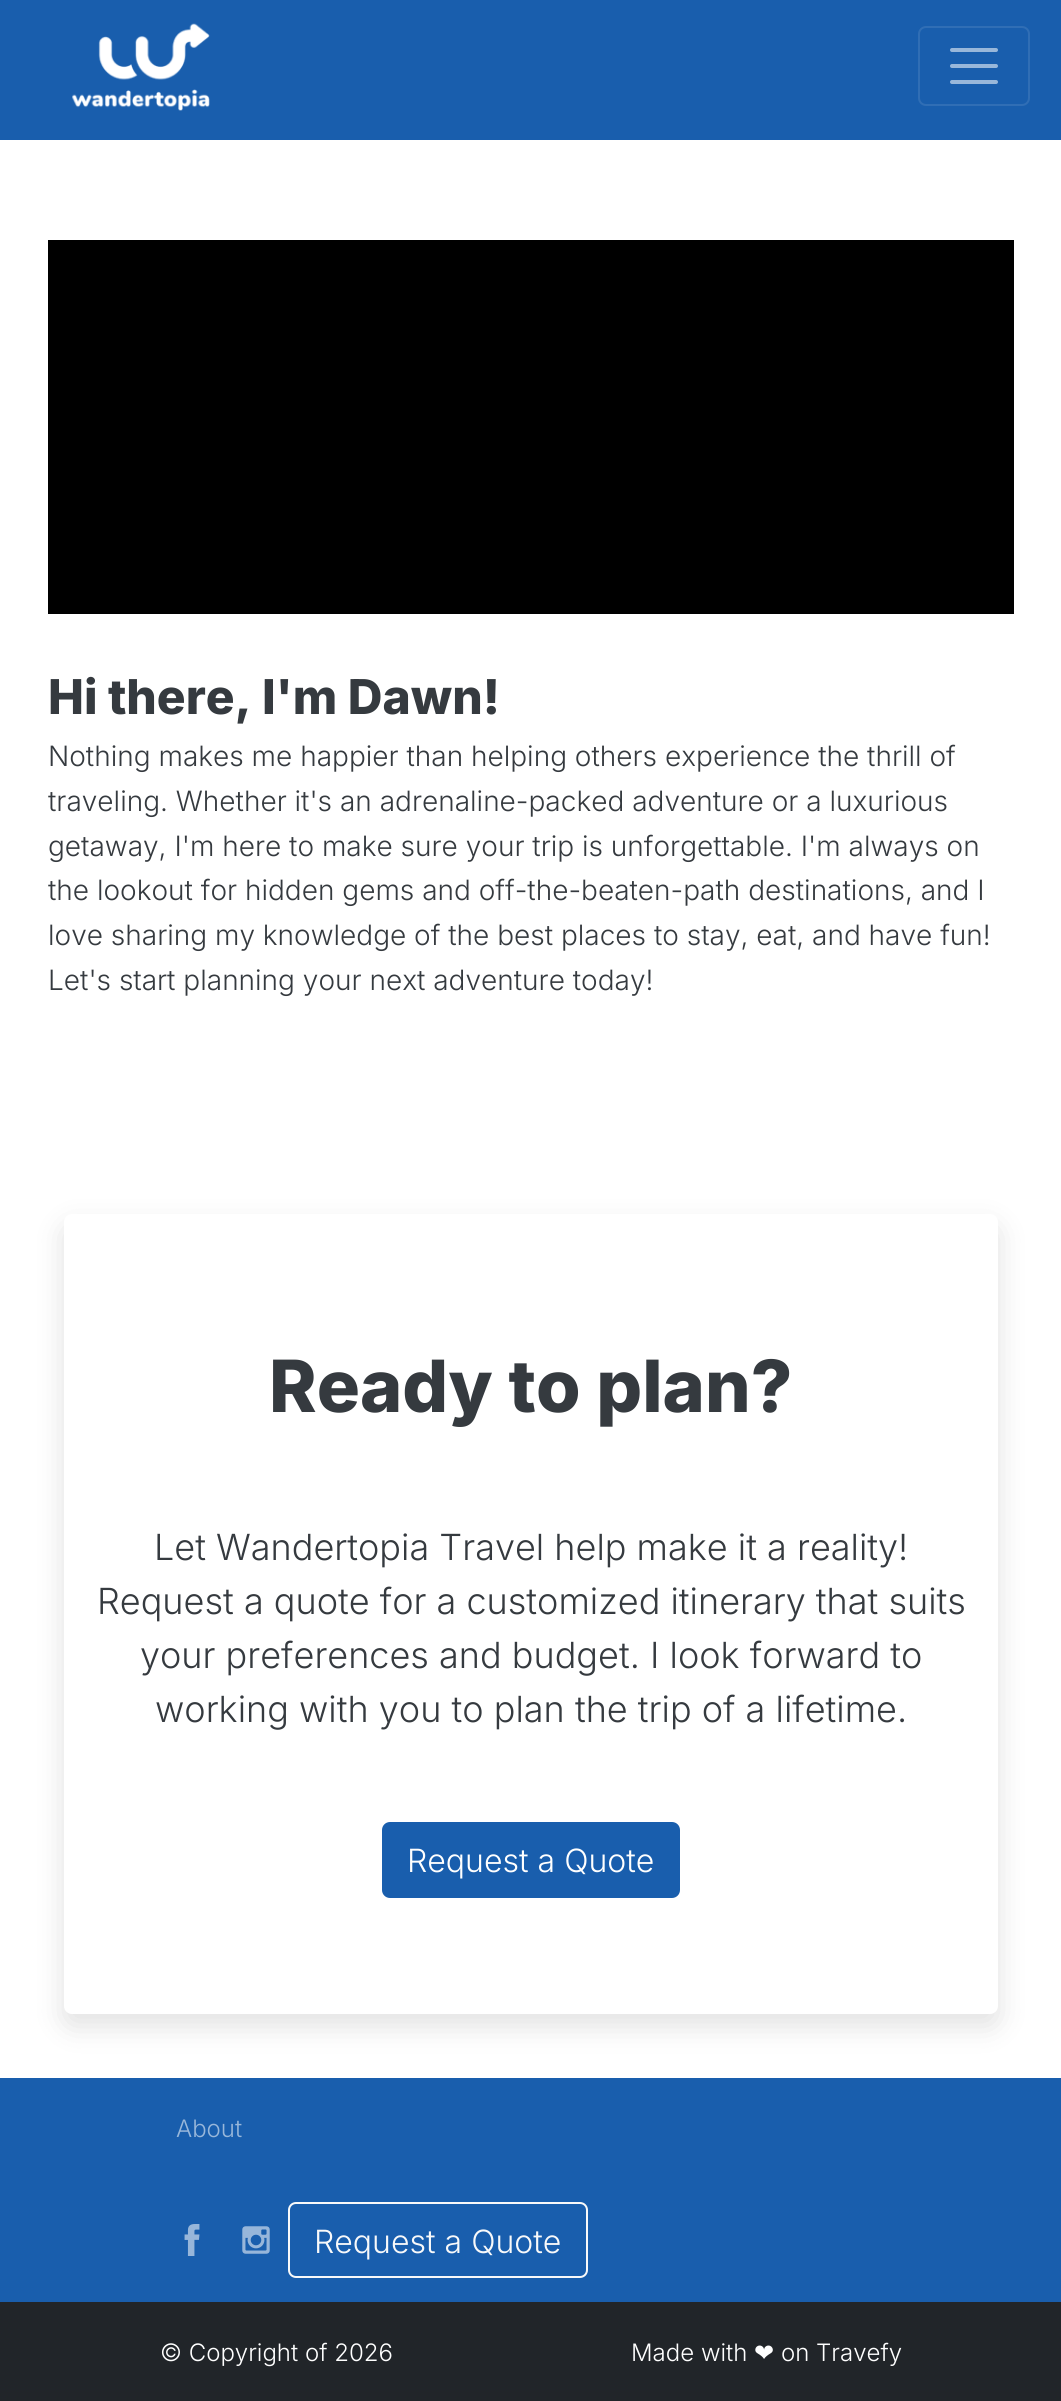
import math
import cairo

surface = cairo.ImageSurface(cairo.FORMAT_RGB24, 1061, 2401)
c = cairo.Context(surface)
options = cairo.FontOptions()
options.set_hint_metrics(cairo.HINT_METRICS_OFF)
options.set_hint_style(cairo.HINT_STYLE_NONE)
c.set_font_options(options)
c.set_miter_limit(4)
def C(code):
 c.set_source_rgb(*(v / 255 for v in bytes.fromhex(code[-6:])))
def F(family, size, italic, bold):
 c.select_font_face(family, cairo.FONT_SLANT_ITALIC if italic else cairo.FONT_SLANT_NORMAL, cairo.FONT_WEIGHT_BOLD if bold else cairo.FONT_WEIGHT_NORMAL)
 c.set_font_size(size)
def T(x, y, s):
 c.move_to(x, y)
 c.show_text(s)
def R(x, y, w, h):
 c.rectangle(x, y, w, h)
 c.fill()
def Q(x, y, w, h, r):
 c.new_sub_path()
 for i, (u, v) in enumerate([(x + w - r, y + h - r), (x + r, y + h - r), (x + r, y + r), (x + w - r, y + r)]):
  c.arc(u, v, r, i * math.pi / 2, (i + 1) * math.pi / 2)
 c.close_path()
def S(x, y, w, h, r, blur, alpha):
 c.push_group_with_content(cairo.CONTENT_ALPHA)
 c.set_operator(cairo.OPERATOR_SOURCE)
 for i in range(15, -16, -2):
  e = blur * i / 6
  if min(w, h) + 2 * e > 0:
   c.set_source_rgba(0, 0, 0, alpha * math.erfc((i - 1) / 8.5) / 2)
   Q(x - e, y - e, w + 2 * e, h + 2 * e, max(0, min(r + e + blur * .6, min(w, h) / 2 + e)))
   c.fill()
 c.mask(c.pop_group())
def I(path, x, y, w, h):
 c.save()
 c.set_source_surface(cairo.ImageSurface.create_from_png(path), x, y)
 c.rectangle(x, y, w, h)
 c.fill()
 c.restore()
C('ffffff')
c.paint()
C('195ead')
R(0,0,1061,140)
I('1.png',72,23,138,88)
Q(919,27,110,78,7)
C('306eb5')
c.stroke()
c.new_path()
c.move_to(952,50)
c.line_to(996,50)
c.move_to(952,66)
c.line_to(996,66)
c.move_to(952,82)
c.line_to(996,82)
C('98b7da')
c.set_line_width(4)
c.set_line_cap(cairo.LINE_CAP_ROUND)
c.stroke()
C('000000')
R(48,240,966,374)
F('Inter ExtraBold',48,0,0)
C('353a3f')
T(48,714,'Hi there, I\'m Dawn!')
F('Inter Light',28,0,0)
T(48,766,'Nothing makes me happier than helping others experience the thrill of')
T(48,811,'traveling. Whether it\'s an adrenaline-packed adventure or a luxurious')
T(48,856,'getaway, I\'m here to make sure your trip is unforgettable. I\'m always on')
T(48,900,'the lookout for hidden gems and off-the-beaten-path destinations, and I')
T(48,945,'love sharing my knowledge of the best places to stay, eat, and have fun!')
T(48,990,'Let\'s start planning your next adventure today!')
C('000000')
S(64,1226,934,800,8,15,.12)
C('ffffff')
Q(64,1214,934,800,8)
c.fill()
F('Inter ExtraBold',72,0,0)
C('353a3f')
T(269,1412,'Ready to plan?')
F('Inter Light',36,0,0)
T(154,1560,'Let Wandertopia Travel help make it a reality!')
T(97,1614,'Request a quote for a customized itinerary that suits')
T(140,1668,'your preferences and budget. I look forward to')
T(155,1722,'working with you to plan the trip of a lifetime.')
C('195ead')
Q(383,1823,296,74,7)
c.fill_preserve()
c.set_line_width(2)
c.set_line_cap(cairo.LINE_CAP_BUTT)
c.stroke()
F('Inter Light',32,0,0)
C('ffffff')
T(407,1872,'Request a Quote')
C('195ead')
R(0,2078,1061,224)
F('Inter Light',24,0,0)
C('98b7da')
T(176,2137,'About')
I('2.png',184,2224,16,32)
I('3.png',242,2226,28,28)
Q(289,2203,298,74,7)
C('f8f9fa')
c.stroke()
F('Inter Light',32,0,0)
T(314,2253,'Request a Quote')
C('212529')
R(0,2302,1061,99)
F('Inter Light',24,0,0)
C('ffffff')
T(160,2361,'© Copyright of 2026')
T(631,2361,'Made with')
F('DejaVu Sans',24,0,0)
T(754,2361,'❤')
F('Inter Light',24,0,0)
T(781,2361,'on Travefy')
surface.write_to_png('o.png')
